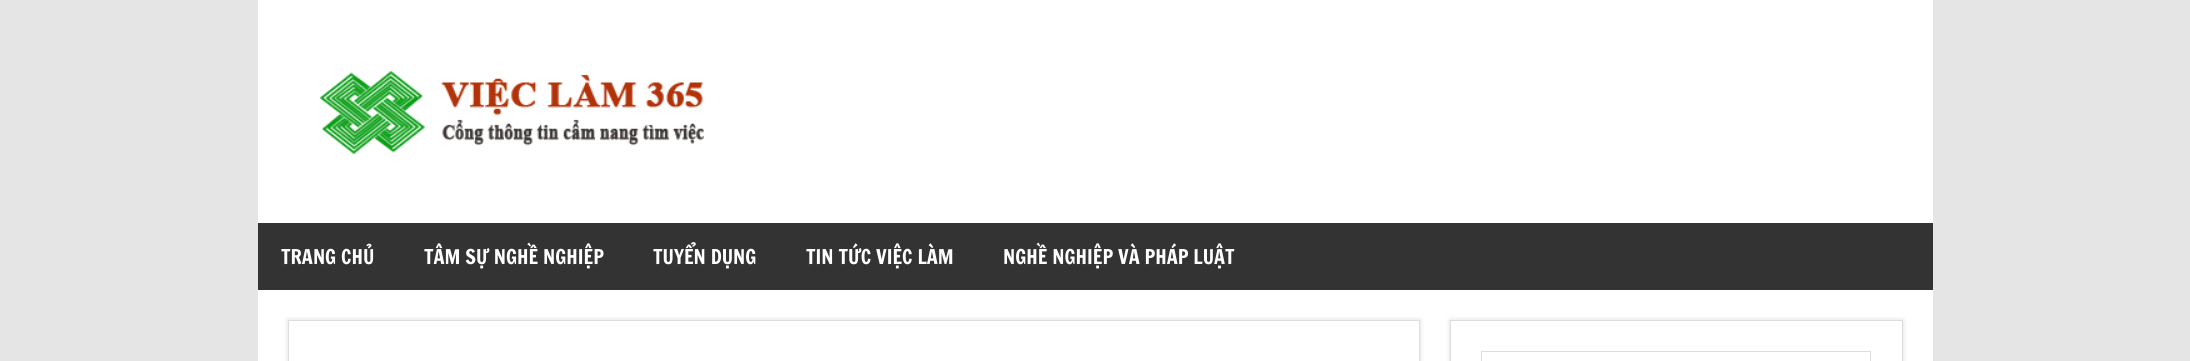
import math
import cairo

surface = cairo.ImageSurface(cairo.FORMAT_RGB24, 2190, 361)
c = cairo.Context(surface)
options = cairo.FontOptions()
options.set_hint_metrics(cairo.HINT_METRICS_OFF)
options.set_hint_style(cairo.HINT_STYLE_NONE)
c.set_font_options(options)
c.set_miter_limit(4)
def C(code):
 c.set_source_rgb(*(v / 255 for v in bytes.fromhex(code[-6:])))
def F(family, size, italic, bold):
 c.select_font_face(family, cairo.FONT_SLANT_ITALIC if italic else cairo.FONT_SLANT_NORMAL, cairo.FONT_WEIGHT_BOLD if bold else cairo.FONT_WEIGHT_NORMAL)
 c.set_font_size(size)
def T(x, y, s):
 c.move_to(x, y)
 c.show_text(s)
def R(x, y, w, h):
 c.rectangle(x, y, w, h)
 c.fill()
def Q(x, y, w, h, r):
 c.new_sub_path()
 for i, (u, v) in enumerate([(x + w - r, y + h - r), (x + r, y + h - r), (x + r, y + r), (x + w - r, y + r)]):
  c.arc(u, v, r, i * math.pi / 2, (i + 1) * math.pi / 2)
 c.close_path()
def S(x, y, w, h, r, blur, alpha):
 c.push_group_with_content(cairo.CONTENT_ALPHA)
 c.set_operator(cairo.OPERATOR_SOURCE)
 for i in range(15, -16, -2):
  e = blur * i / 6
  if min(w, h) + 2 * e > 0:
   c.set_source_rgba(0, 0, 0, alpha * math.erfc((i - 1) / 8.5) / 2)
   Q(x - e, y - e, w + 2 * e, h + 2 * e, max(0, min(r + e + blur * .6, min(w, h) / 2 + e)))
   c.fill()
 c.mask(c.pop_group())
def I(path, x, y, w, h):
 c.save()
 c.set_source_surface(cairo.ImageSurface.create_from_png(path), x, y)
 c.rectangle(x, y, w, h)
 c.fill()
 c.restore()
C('e5e5e5')
c.paint()
C('ffffff')
R(258,0,1675,361)
I('1.png',319,71,385,83)
C('333333')
R(258,223,1675,67)
F('Francois One',20,0,0)
C('ffffff')
T(281,264,'TRANG CHỦ')
T(424,264,'TÂM SỰ NGHỀ NGHIỆP')
T(653,264,'TUYỂN DỤNG')
T(806,264,'TIN TỨC VIỆC LÀM')
T(1003,264,'NGHỀ NGHIỆP VÀ PHÁP LUẬT')
c.save()
c.set_fill_rule(cairo.FILL_RULE_EVEN_ODD)
c.new_path()
c.move_to(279,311)
c.line_to(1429,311)
c.line_to(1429,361)
c.line_to(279,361)
c.close_path()
c.move_to(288,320)
c.line_to(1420,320)
c.line_to(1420,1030)
c.line_to(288,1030)
c.close_path()
c.clip()
C('dddddd')
S(288,320,1132,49,0,2.5,1)
c.restore()
c.rectangle(288.5,320.5,1131,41)
C('dddddd')
c.set_line_width(1)
c.stroke()
C('dddddd')
S(1450,320,453,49,0,2.5,1)
C('ffffff')
c.rectangle(1450.5,320.5,452,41)
c.fill_preserve()
C('dddddd')
c.stroke()
c.rectangle(1481.5,351.5,389,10)
c.stroke()
surface.write_to_png('o.png')
